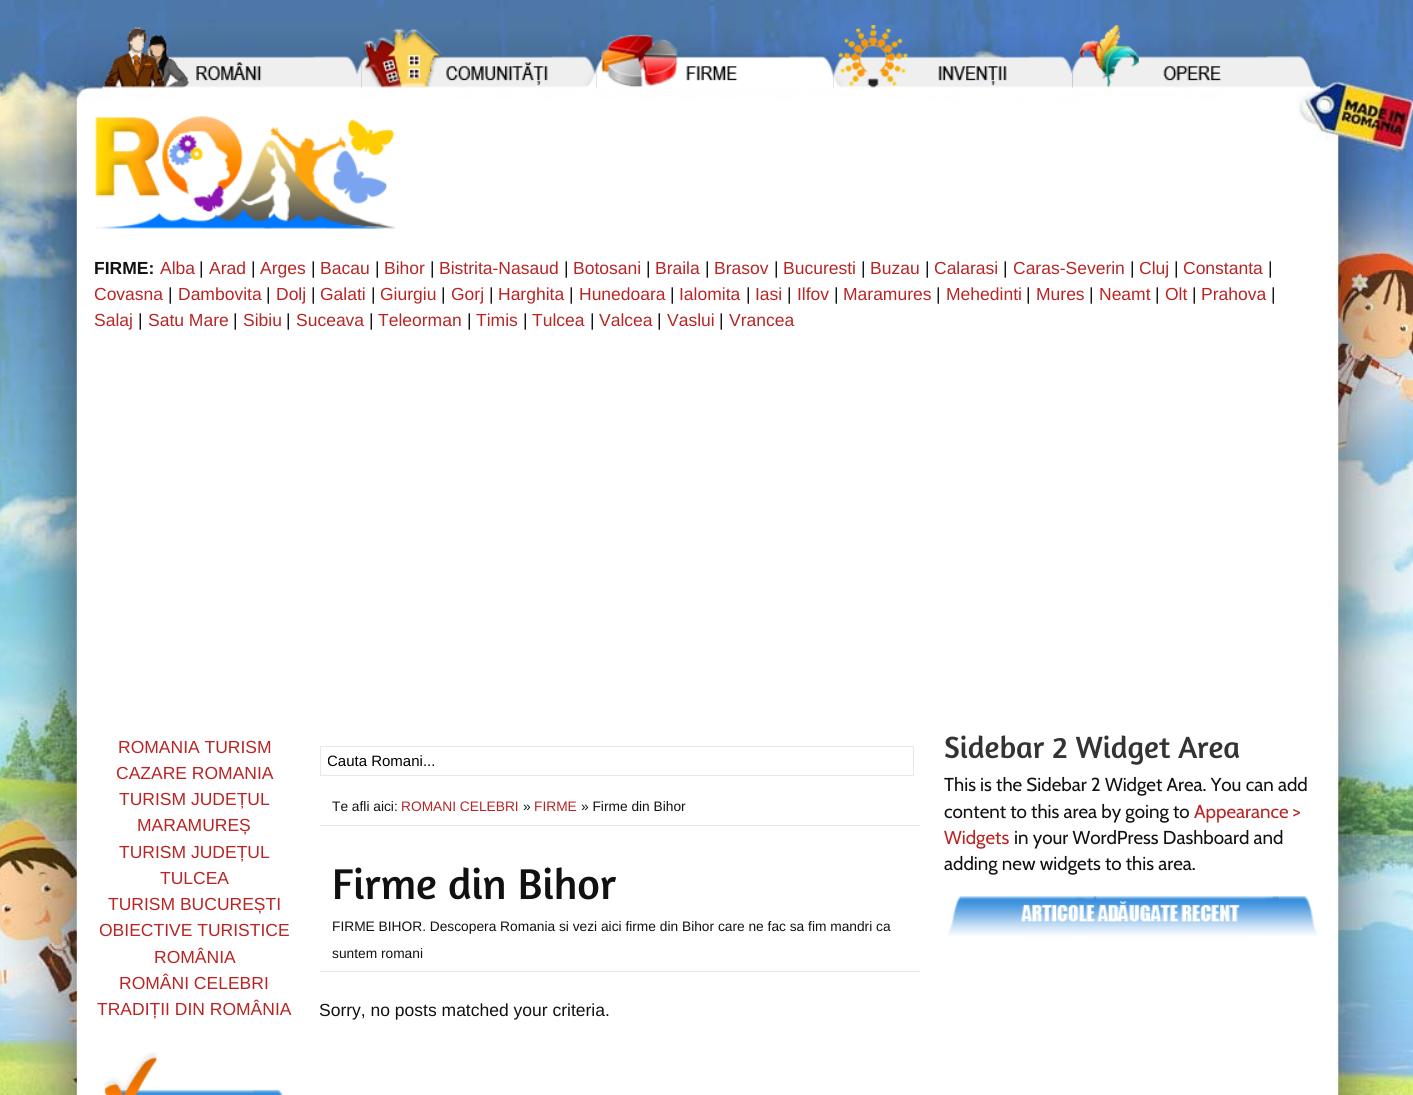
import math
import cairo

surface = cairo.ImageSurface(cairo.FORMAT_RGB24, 1413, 1095)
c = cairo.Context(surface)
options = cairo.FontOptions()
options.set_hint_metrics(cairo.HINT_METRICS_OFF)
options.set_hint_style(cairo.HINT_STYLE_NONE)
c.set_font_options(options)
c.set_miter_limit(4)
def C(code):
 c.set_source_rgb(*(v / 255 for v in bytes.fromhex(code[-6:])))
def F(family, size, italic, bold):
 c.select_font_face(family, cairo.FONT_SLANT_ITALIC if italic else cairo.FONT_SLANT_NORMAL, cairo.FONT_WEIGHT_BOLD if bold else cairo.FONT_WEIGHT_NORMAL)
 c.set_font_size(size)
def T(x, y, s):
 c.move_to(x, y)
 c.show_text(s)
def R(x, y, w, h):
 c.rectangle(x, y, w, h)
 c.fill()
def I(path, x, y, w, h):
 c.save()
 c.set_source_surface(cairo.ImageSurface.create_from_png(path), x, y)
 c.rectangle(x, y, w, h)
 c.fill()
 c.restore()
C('ffffff')
c.paint()
I('1.png',0,0,1413,1095)
I('6.png',1072,25,248,67)
I('5.png',833,25,240,66)
I('4.png',596,34,238,56)
I('3.png',361,28,236,62)
I('2.png',102,27,260,63)
I('7.png',95,116,300,113)
F('Liberation Sans',17.5,0,1)
C('111111')
T(94,274,'FIRME:')
F('Liberation Sans',17.5,0,0)
C('b82525')
T(160,274,'Alba')
C('111111')
T(199,274,'|')
C('b82525')
T(209,274,'Arad')
C('111111')
T(251,274,'|')
C('b82525')
T(260,274,'Arges')
C('111111')
T(311,274,'|')
C('b82525')
T(320,274,'Bacau')
C('111111')
T(375,274,'|')
C('b82525')
T(384,274,'Bihor')
C('111111')
T(430,274,'|')
C('b82525')
T(439,274,'Bistrita-Nasaud')
C('111111')
T(564,274,'|')
C('b82525')
T(573,274,'Botosani')
C('111111')
T(646,274,'|')
C('b82525')
T(655,274,'Braila')
C('111111')
T(705,274,'|')
C('b82525')
T(714,274,'Brasov')
C('111111')
T(774,274,'|')
C('b82525')
T(783,274,'Bucuresti')
C('111111')
T(861,274,'|')
C('b82525')
T(870,274,'Buzau')
C('111111')
T(925,274,'|')
C('b82525')
T(934,274,'Calarasi')
C('111111')
T(1003,274,'|')
C('b82525')
T(1013,274,'Caras-Severin')
C('111111')
T(1130,274,'|')
C('b82525')
T(1139,274,'Cluj')
C('111111')
T(1174,274,'|')
C('b82525')
T(1183,274,'Constanta')
C('111111')
T(1268,274,'|')
C('b82525')
T(94,300,'Covasna')
C('111111')
T(168,300,'|')
C('b82525')
T(178,300,'Dambovita')
C('111111')
T(266,300,'|')
C('b82525')
T(276,300,'Dolj')
C('111111')
T(311,300,'|')
C('b82525')
T(320,300,'Galati')
C('111111')
T(371,300,'|')
C('b82525')
T(380,300,'Giurgiu')
C('111111')
T(441,300,'|')
C('b82525')
T(451,300,'Gorj')
C('111111')
T(489,300,'|')
C('b82525')
T(498,300,'Harghita')
C('111111')
T(569,300,'|')
C('b82525')
T(579,300,'Hunedoara')
C('111111')
T(670,300,'|')
C('b82525')
T(679,300,'Ialomita')
C('111111')
T(746,300,'|')
C('b82525')
T(755,300,'Iasi')
C('111111')
T(787,300,'|')
C('b82525')
T(797,300,'Ilfov')
C('111111')
T(834,300,'|')
C('b82525')
T(843,300,'Maramures')
C('111111')
T(936,300,'|')
C('b82525')
T(946,300,'Mehedinti')
C('111111')
T(1026,300,'|')
C('b82525')
T(1036,300,'Mures')
C('111111')
T(1089,300,'|')
C('b82525')
T(1099,300,'Neamt')
C('111111')
T(1155,300,'|')
C('b82525')
T(1165,300,'Olt')
C('111111')
T(1192,300,'|')
C('b82525')
T(1201,300,'Prahova')
C('111111')
T(1271,300,'|')
C('b82525')
T(94,326,'Salaj')
C('111111')
T(138,326,'|')
C('b82525')
T(148,326,'Satu Mare')
C('111111')
T(233,326,'|')
C('b82525')
T(243,326,'Sibiu')
C('111111')
T(286,326,'|')
C('b82525')
T(296,326,'Suceava')
C('111111')
T(369,326,'|')
C('b82525')
T(378,326,'Teleorman')
C('111111')
T(467,326,'|')
C('b82525')
T(476,326,'Timis')
C('111111')
T(523,326,'|')
C('b82525')
T(532,326,'Tulcea')
C('111111')
T(590,326,'|')
C('b82525')
T(599,326,'Valcea')
C('111111')
T(657,326,'|')
C('b82525')
T(667,326,'Vaslui')
C('111111')
T(719,326,'|')
C('b82525')
T(729,326,'Vrancea')
T(118,753,'ROMANIA TURISM')
T(116,779,'CAZARE ROMANIA')
T(119,805,'TURISM JUDEȚUL')
T(137,831,'MARAMUREȘ')
T(119,858,'TURISM JUDEȚUL')
T(160,884,'TULCEA')
T(108,910,'TURISM BUCUREȘTI')
T(99,936,'OBIECTIVE TURISTICE')
T(154,963,'ROMÂNIA')
T(119,989,'ROMÂNI CELEBRI')
T(97,1015,'TRADIȚII DIN ROMÂNIA')
I('8.png',104,1052,179,43)
c.rectangle(320.5,746.5,593,29)
C('e8e8e8')
c.set_line_width(1)
c.stroke()
c.save()
c.rectangle(328,753,585,17)
c.clip()
F('Liberation Sans',15,0,0)
C('000000')
T(327,766,'Cauta Romani...')
c.restore()
R(320,825,600,1)
F('Liberation Sans',13.75,0,0)
C('111111')
T(332,811,'Te afli aici:')
C('b82525')
T(401,811,'ROMANI CELEBRI')
C('111111')
T(523,811,'»')
C('b82525')
T(534,811,'FIRME')
C('111111')
T(581,811,'» Firme din Bihor')
C('e8e8e8')
R(320,971,600,1)
F('Amaranth',43.75,0,0)
C('111111')
T(332,899,'Firme din Bihor')
F('Liberation Sans',13.75,0,0)
T(332,931,'FIRME BIHOR. Descopera Romania si vezi aici firme din Bihor care ne fac sa fim mandri ca')
T(332,958,'suntem romani')
F('Liberation Sans',17.5,0,0)
T(319,1016,'Sorry, no posts matched your criteria.')
F('Amaranth',31.25,0,0)
C('333333')
T(944,758,'Sidebar 2 Widget Area')
F('Cabin',18.75,0,0)
C('111111')
T(944,791,'This is the Sidebar 2 Widget Area. You can add')
T(944,818,'content to this area by going to')
C('b82525')
T(1194,818,'Appearance >')
T(944,844,'Widgets')
C('111111')
T(1014,844,'in your WordPress Dashboard and')
T(944,870,'adding new widgets to this area.')
I('9.png',947,896,371,41)
surface.write_to_png('o.png')
